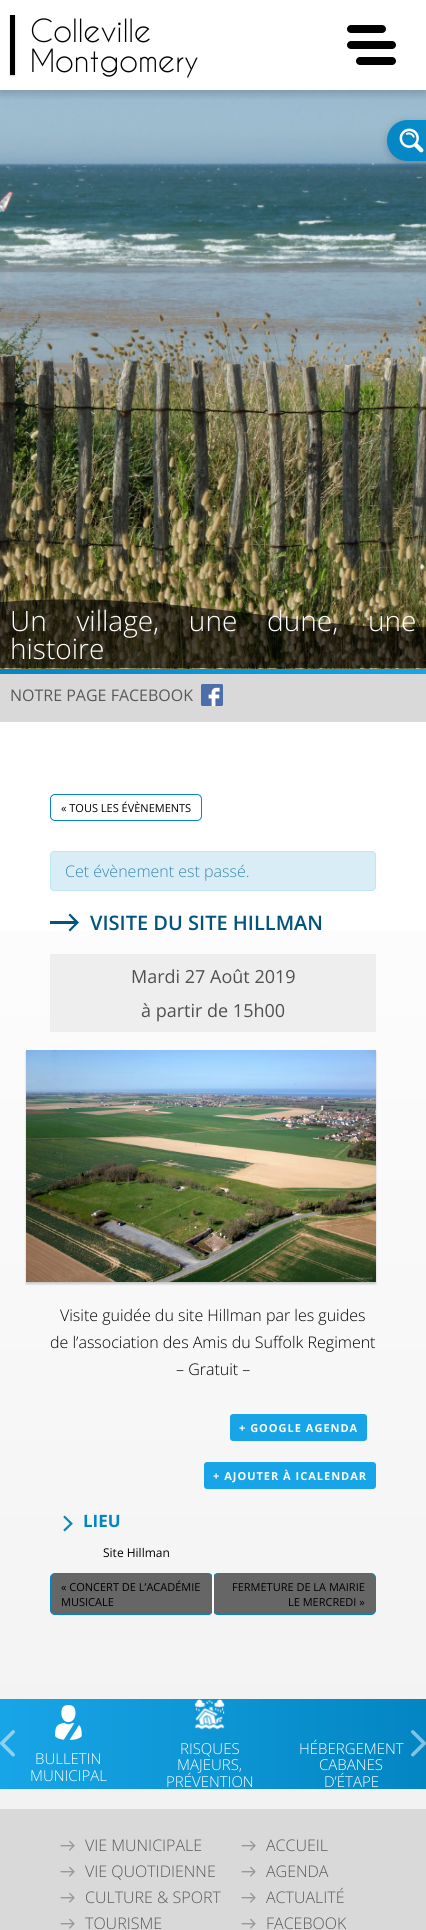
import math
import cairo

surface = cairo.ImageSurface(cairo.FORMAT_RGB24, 426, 1930)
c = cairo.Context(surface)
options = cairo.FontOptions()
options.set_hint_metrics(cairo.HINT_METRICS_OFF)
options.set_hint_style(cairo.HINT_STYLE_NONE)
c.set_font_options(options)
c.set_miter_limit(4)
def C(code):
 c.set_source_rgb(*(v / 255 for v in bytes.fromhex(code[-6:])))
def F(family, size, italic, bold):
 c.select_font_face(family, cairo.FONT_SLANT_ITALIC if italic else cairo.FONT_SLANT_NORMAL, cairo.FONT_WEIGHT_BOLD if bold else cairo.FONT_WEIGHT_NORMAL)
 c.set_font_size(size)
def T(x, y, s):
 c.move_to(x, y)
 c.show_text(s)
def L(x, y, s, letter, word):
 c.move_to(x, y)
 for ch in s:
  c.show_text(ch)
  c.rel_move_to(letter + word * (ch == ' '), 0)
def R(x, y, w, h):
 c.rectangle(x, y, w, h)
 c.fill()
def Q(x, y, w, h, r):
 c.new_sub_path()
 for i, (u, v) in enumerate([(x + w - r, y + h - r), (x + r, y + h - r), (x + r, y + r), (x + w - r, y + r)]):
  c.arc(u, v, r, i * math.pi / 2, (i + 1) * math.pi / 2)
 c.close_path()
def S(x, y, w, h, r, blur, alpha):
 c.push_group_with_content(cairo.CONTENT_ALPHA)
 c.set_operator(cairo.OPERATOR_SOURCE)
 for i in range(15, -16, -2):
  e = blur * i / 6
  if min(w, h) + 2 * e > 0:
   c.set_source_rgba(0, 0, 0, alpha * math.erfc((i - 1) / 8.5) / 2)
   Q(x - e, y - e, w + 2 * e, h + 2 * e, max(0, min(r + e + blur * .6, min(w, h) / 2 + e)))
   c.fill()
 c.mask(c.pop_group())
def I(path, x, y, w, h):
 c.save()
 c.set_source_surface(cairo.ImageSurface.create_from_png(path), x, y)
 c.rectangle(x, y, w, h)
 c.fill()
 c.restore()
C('ffffff')
c.paint()
I('1.png',0,90,426,579)
c.save()
c.rectangle(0,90,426,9)
c.clip()
C('000000')
S(0,3,426,90,0,5,.2)
c.restore()
C('000000')
S(10,16,5,60,0,1,.2)
C('000000')
R(10,15,5,60)
F('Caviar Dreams',30,0,0)
T(30,42,'Colleville')
T(30,72,'Montgomery')
Q(347,41,49,8,4)
c.fill()
Q(347,25,39,8,4)
c.fill()
Q(356,57,40,8,4)
c.fill()
C('000000')
S(387,122,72,41,20.5,4,.2)
gradient = cairo.LinearGradient(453,227,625,54)
gradient.add_color_stop_rgba(0,0.012,0.522,0.761,1)
gradient.add_color_stop_rgba(1,0.094,0.647,0.906,1)
c.set_source(gradient)
c.new_path()
c.move_to(407.5,120)
c.line_to(426,120)
c.line_to(426,161)
c.line_to(407.5,161)
c.curve_to(396,161,387,152,387,140.5)
c.curve_to(387,129,396,120,407.5,120)
c.close_path()
c.fill()
I('2.png',399,128,25,25)
c.set_source_rgba(0,0,0,0.65)
c.set_fill_rule(cairo.FILL_RULE_EVEN_ODD)
c.new_path()
c.move_to(-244,668)
c.curve_to(-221,645,-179,634,-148,626)
c.line_to(-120,619)
c.curve_to(-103,615,-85,612,-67,610)
c.curve_to(-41,606,-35,605,-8,603)
c.curve_to(30,599,67,599,105,600)
c.curve_to(138,602,170,604,202,608)
c.curve_to(256,613,309,622,363,626)
c.curve_to(399,628,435,628,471,624)
c.curve_to(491,621,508,618,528,614)
c.curve_to(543,611,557,608,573,606)
c.curve_to(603,603,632,611,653,635)
c.curve_to(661,644,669,656,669,668)
c.close_path()
c.fill()
F('Open Sans Light',28,0,0)
C('ffffff')
L(10,631,'Un village, une dune, une',0,22.5)
T(10,659,'histoire')
C('d9d9d9')
R(0,674,426,48)
gradient = cairo.LinearGradient(0,672,426,672)
gradient.add_color_stop_rgba(0,0.012,0.522,0.761,1)
gradient.add_color_stop_rgba(1,0.094,0.647,0.906,1)
c.set_source(gradient)
R(0,669,426,5)
F('Open Sans',16,0,0)
C('595959')
T(10,701,'NOTRE PAGE FACEBOOK')
I('3.png',201,684,22,22)
gradient = cairo.LinearGradient(213,1809,213,722)
gradient.add_color_stop_rgba(0,0.949,0.949,0.949,1)
gradient.add_color_stop_rgba(1,1,1,1,1)
c.set_source(gradient)
R(0,931,426,878)
Q(50.5,794.5,151,26,4.5)
C('0385c2')
c.set_line_width(1)
c.stroke()
F('Open Sans',11,0,0)
C('000000')
T(61,812,'« TOUS LES ÉVÈNEMENTS')
C('d9edf7')
Q(50.5,851.5,325,39,3.5)
c.fill_preserve()
C('bce8f1')
c.stroke()
F('Open Sans Light',16,0,0)
C('3a87ad')
T(65,877,'Cet évènement est passé.')
C('01557c')
c.new_path()
c.move_to(74,921)
c.line_to(68.5,915)
c.line_to(70,913.5)
c.line_to(79,922.5)
c.line_to(70,931.5)
c.line_to(68.5,930)
c.line_to(74.5,924)
c.line_to(50,924)
c.line_to(50,921)
c.close_path()
c.fill()
F('Open Sans SemiBold',20,0,0)
T(90,930,'VISITE DU SITE HILLMAN')
C('eeeeee')
R(50,954,326,78)
F('Open Sans',18,0,0)
C('505050')
T(131,983,'Mardi 27 Août 2019')
T(141,1017,'à partir de 15h00')
C('000000')
S(26,1052,350,232,0,1,.2)
I('4.png',26,1050,350,232)
F('Open Sans Light',16,0,0)
C('000000')
T(60,1321,'Visite guidée du site Hillman par les guides')
T(50,1348,'de l’association des Amis du Suffolk Regiment')
T(176,1375,'– Gratuit –')
C('18a5e7')
Q(230,1414,137,27,3)
c.fill()
F('Open Sans',11,0,1)
C('ffffff')
L(239,1432,'+ GOOGLE AGENDA',1,0)
C('18a5e7')
Q(204,1462,172,27,3)
c.fill()
C('ffffff')
L(213,1480,'+ AJOUTER À ICALENDAR',1,0)
I('5.png',63,1515,10,17)
F('Open Sans',17,0,1)
C('0385c2')
T(83,1527,'LIEU')
F('Open Sans',12,0,0)
C('000000')
T(103,1557,'Site Hillman')
C('666666')
Q(50.5,1573.5,162,41,4.5)
c.fill_preserve()
C('0385c2')
c.stroke()
C('666666')
Q(213.5,1573.5,162,41,4.5)
c.fill_preserve()
C('0385c2')
c.stroke()
C('ffffff')
R(212,1573,2,42)
F('Open Sans',11,0,0)
C('000000')
T(61,1591,'« CONCERT DE L’ACADÉMIE')
T(61,1606,'MUSICALE')
T(232,1591,'FERMETURE DE LA MAIRIE')
T(288,1606,'LE MERCREDI »')
gradient = cairo.LinearGradient(426,1744,0,1744)
gradient.add_color_stop_rgba(0,0.012,0.522,0.761,1)
gradient.add_color_stop_rgba(1,0.094,0.647,0.906,1)
c.set_source(gradient)
R(0,1699,426,90)
I('6.png',0,1730,15,27)
I('7.png',411,1730,15,27)
I('8.png',55,1705,27,35)
F('Open Sans Light',15,0,0)
C('ffffff')
T(35,1764,'BULLETIN')
T(30,1781,'MUNICIPAL')
I('9.png',194,1699,31,31)
T(180,1754,'RISQUES')
T(177,1770,'MAJEURS,')
T(166,1787,'PRÉVENTION')
T(299,1754,'HÉBERGEMENT')
T(319,1770,'CABANES')
T(324,1787,'D’ÉTAPE')
C('d9d9d9')
R(0,1809,426,121)
I('10.png',60,1840,15,11)
F('Open Sans Light',16,0,0)
C('595959')
T(85,1851,'VIE MUNICIPALE')
I('10.png',60,1866,15,11)
T(85,1877,'VIE QUOTIDIENNE')
I('10.png',60,1892,15,11)
T(85,1903,'CULTURE & SPORT')
I('10.png',60,1918,15,11)
T(85,1929,'TOURISME')
I('10.png',241,1840,15,11)
T(266,1851,'ACCUEIL')
I('10.png',241,1866,15,11)
T(266,1877,'AGENDA')
I('10.png',241,1892,15,11)
T(266,1903,'ACTUALITÉ')
I('10.png',241,1918,15,11)
T(266,1929,'FACEBOOK')
surface.write_to_png('o.png')
